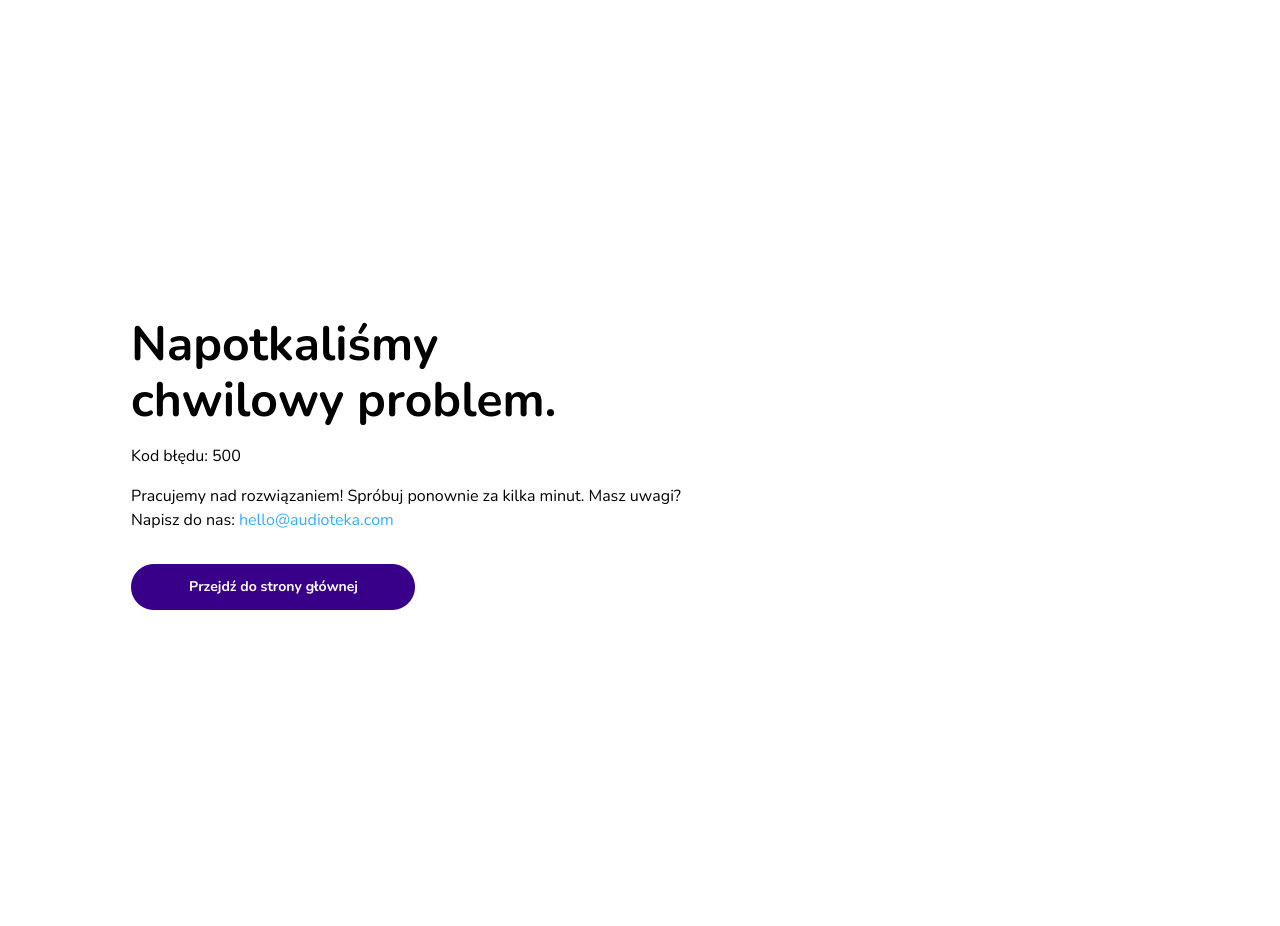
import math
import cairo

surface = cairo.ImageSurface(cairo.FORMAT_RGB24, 1280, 926)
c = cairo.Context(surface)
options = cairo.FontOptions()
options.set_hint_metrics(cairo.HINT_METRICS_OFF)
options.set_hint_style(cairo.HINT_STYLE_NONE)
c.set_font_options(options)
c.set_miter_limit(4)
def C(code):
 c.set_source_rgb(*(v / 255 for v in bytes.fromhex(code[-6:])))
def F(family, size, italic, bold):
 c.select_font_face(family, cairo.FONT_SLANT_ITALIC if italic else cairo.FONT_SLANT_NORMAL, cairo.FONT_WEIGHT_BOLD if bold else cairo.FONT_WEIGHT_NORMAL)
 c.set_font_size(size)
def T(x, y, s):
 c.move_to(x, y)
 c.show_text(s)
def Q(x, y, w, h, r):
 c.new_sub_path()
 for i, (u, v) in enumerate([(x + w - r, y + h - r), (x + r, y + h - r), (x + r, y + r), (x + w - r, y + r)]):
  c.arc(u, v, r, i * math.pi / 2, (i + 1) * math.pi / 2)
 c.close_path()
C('ffffff')
c.paint()
F('Nunito',48,0,1)
C('000000')
T(131,360,'Napotkaliśmy')
T(131,416,'chwilowy problem.')
F('Nunito',16,0,0)
T(131,461,'Kod błędu: 500')
T(131,501,'Pracujemy nad rozwiązaniem! Spróbuj ponownie za kilka minut. Masz uwagi?')
T(131,525,'Napisz do nas:')
C('33adff')
T(239,525,'hello@audioteka.com')
C('380089')
Q(131,564,284,46,23)
c.fill()
F('Nunito',14,0,1)
C('ffffff')
T(189,591,'Przejdź do strony głównej')
surface.write_to_png('o.png')
